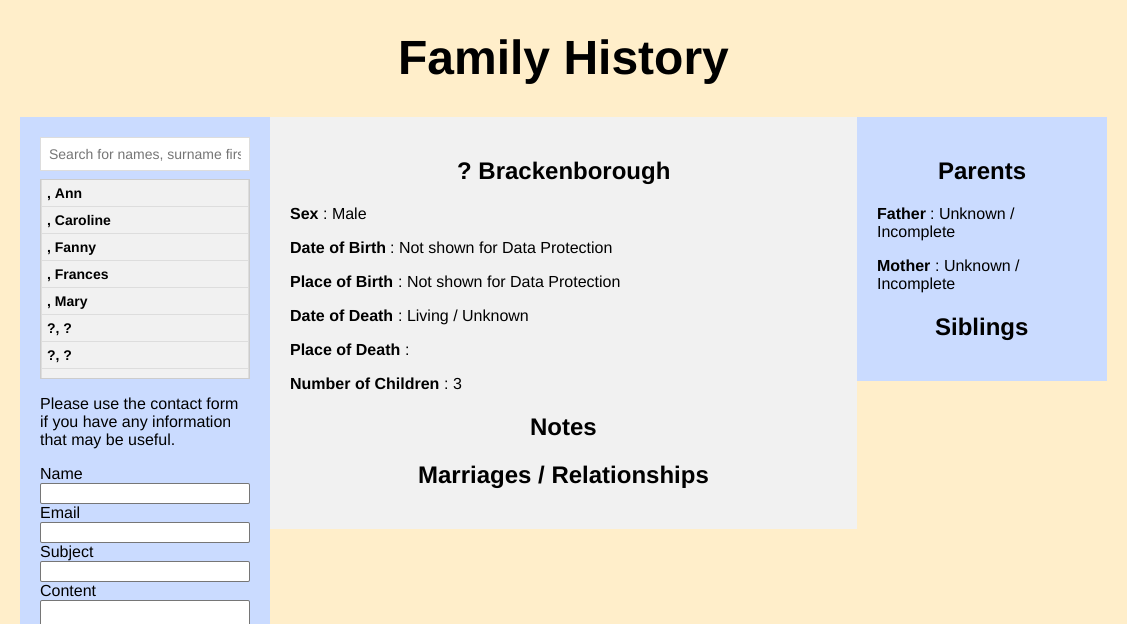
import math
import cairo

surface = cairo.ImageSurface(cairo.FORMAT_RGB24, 1127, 624)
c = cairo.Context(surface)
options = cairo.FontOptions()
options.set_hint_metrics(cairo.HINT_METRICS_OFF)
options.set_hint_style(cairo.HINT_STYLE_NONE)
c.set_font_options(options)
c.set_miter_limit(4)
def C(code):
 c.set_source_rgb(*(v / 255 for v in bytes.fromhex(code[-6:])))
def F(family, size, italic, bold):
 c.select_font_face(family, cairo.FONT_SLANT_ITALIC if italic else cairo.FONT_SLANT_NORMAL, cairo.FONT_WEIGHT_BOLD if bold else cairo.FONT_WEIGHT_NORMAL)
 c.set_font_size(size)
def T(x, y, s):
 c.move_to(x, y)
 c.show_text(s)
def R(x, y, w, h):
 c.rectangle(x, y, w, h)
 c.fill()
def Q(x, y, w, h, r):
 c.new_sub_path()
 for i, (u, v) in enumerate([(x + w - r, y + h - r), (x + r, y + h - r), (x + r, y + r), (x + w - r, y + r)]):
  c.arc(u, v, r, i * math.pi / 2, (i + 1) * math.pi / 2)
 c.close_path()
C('ffeeca')
c.paint()
F('Liberation Sans',48,0,1)
C('000000')
T(398,74,'Family History')
C('cadbff')
R(20,117,250,507)
C('ffffff')
c.rectangle(40.5,137.5,209,33)
c.fill_preserve()
C('dddddd')
c.set_line_width(1)
c.stroke()
c.save()
c.rectangle(49,146,192,16)
c.clip()
F('Liberation Sans',14,0,0)
C('757575')
T(49,159,'Search for names, surname firs')
c.restore()
c.rectangle(40.5,179.5,209,199)
C('cccccc')
c.stroke()
C('f1f1f1')
R(42,180,206,26)
c.save()
c.rectangle(41,180,208,198)
c.clip()
c.rectangle(41.5,179.5,207,27)
C('dddddd')
c.stroke()
c.restore()
F('Liberation Sans',14,0,1)
C('000000')
T(47,198,', Ann')
C('f1f1f1')
c.rectangle(41.5,206.5,207,27)
c.fill_preserve()
C('dddddd')
c.stroke()
C('000000')
T(47,225,', Caroline')
C('f1f1f1')
c.rectangle(41.5,233.5,207,27)
c.fill_preserve()
C('dddddd')
c.stroke()
C('000000')
T(47,252,', Fanny')
C('f1f1f1')
c.rectangle(41.5,260.5,207,27)
c.fill_preserve()
C('dddddd')
c.stroke()
C('000000')
T(47,279,', Frances')
C('f1f1f1')
c.rectangle(41.5,287.5,207,27)
c.fill_preserve()
C('dddddd')
c.stroke()
C('000000')
T(47,306,', Mary')
C('f1f1f1')
c.rectangle(41.5,314.5,207,27)
c.fill_preserve()
C('dddddd')
c.stroke()
C('000000')
T(47,333,'?, ?')
C('f1f1f1')
c.rectangle(41.5,341.5,207,27)
c.fill_preserve()
C('dddddd')
c.stroke()
C('000000')
T(47,360,'?, ?')
C('f1f1f1')
R(42,369,206,9)
c.save()
c.rectangle(41,180,208,198)
c.clip()
c.rectangle(41.5,368.5,207,27)
C('dddddd')
c.stroke()
c.restore()
F('Liberation Sans',16,0,0)
C('000000')
T(40,409,'Please use the contact form')
T(40,427,'if you have any information')
T(40,445,'that may be useful.')
T(40,479,'Name')
C('ffffff')
Q(40.5,483.5,209,20,1.5)
c.fill_preserve()
C('767676')
c.stroke()
C('000000')
T(40,518,'Email')
C('ffffff')
Q(40.5,522.5,209,20,1.5)
c.fill_preserve()
C('767676')
c.stroke()
C('000000')
T(40,557,'Subject')
C('ffffff')
Q(40.5,561.5,209,20,1.5)
c.fill_preserve()
C('767676')
c.stroke()
C('000000')
T(40,596,'Content')
C('ffffff')
Q(40.5,600.5,209,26,1.5)
c.fill_preserve()
C('767676')
c.stroke()
C('f1f1f1')
R(270,117,587,412)
F('Liberation Sans',24,0,1)
C('000000')
T(457,179,'? Brackenborough')
F('Liberation Sans',16,0,1)
T(290,219,'Sex')
F('Liberation Sans',16,0,0)
T(323,219,': Male')
F('Liberation Sans',16,0,1)
T(290,253,'Date of Birth')
F('Liberation Sans',16,0,0)
T(390,253,': Not shown for Data Protection')
F('Liberation Sans',16,0,1)
T(290,287,'Place of Birth')
F('Liberation Sans',16,0,0)
T(398,287,': Not shown for Data Protection')
F('Liberation Sans',16,0,1)
T(290,321,'Date of Death')
F('Liberation Sans',16,0,0)
T(398,321,': Living / Unknown')
F('Liberation Sans',16,0,1)
T(290,355,'Place of Death')
F('Liberation Sans',16,0,0)
T(405,355,':')
F('Liberation Sans',16,0,1)
T(290,389,'Number of Children')
F('Liberation Sans',16,0,0)
T(444,389,': 3')
F('Liberation Sans',24,0,1)
T(530,435,'Notes')
T(418,483,'Marriages / Relationships')
C('cadbff')
R(857,117,250,264)
C('000000')
T(938,179,'Parents')
F('Liberation Sans',16,0,1)
T(877,219,'Father')
F('Liberation Sans',16,0,0)
T(930,219,': Unknown /')
T(877,237,'Incomplete')
F('Liberation Sans',16,0,1)
T(877,271,'Mother')
F('Liberation Sans',16,0,0)
T(935,271,': Unknown /')
T(877,289,'Incomplete')
F('Liberation Sans',24,0,1)
T(935,335,'Siblings')
surface.write_to_png('o.png')
